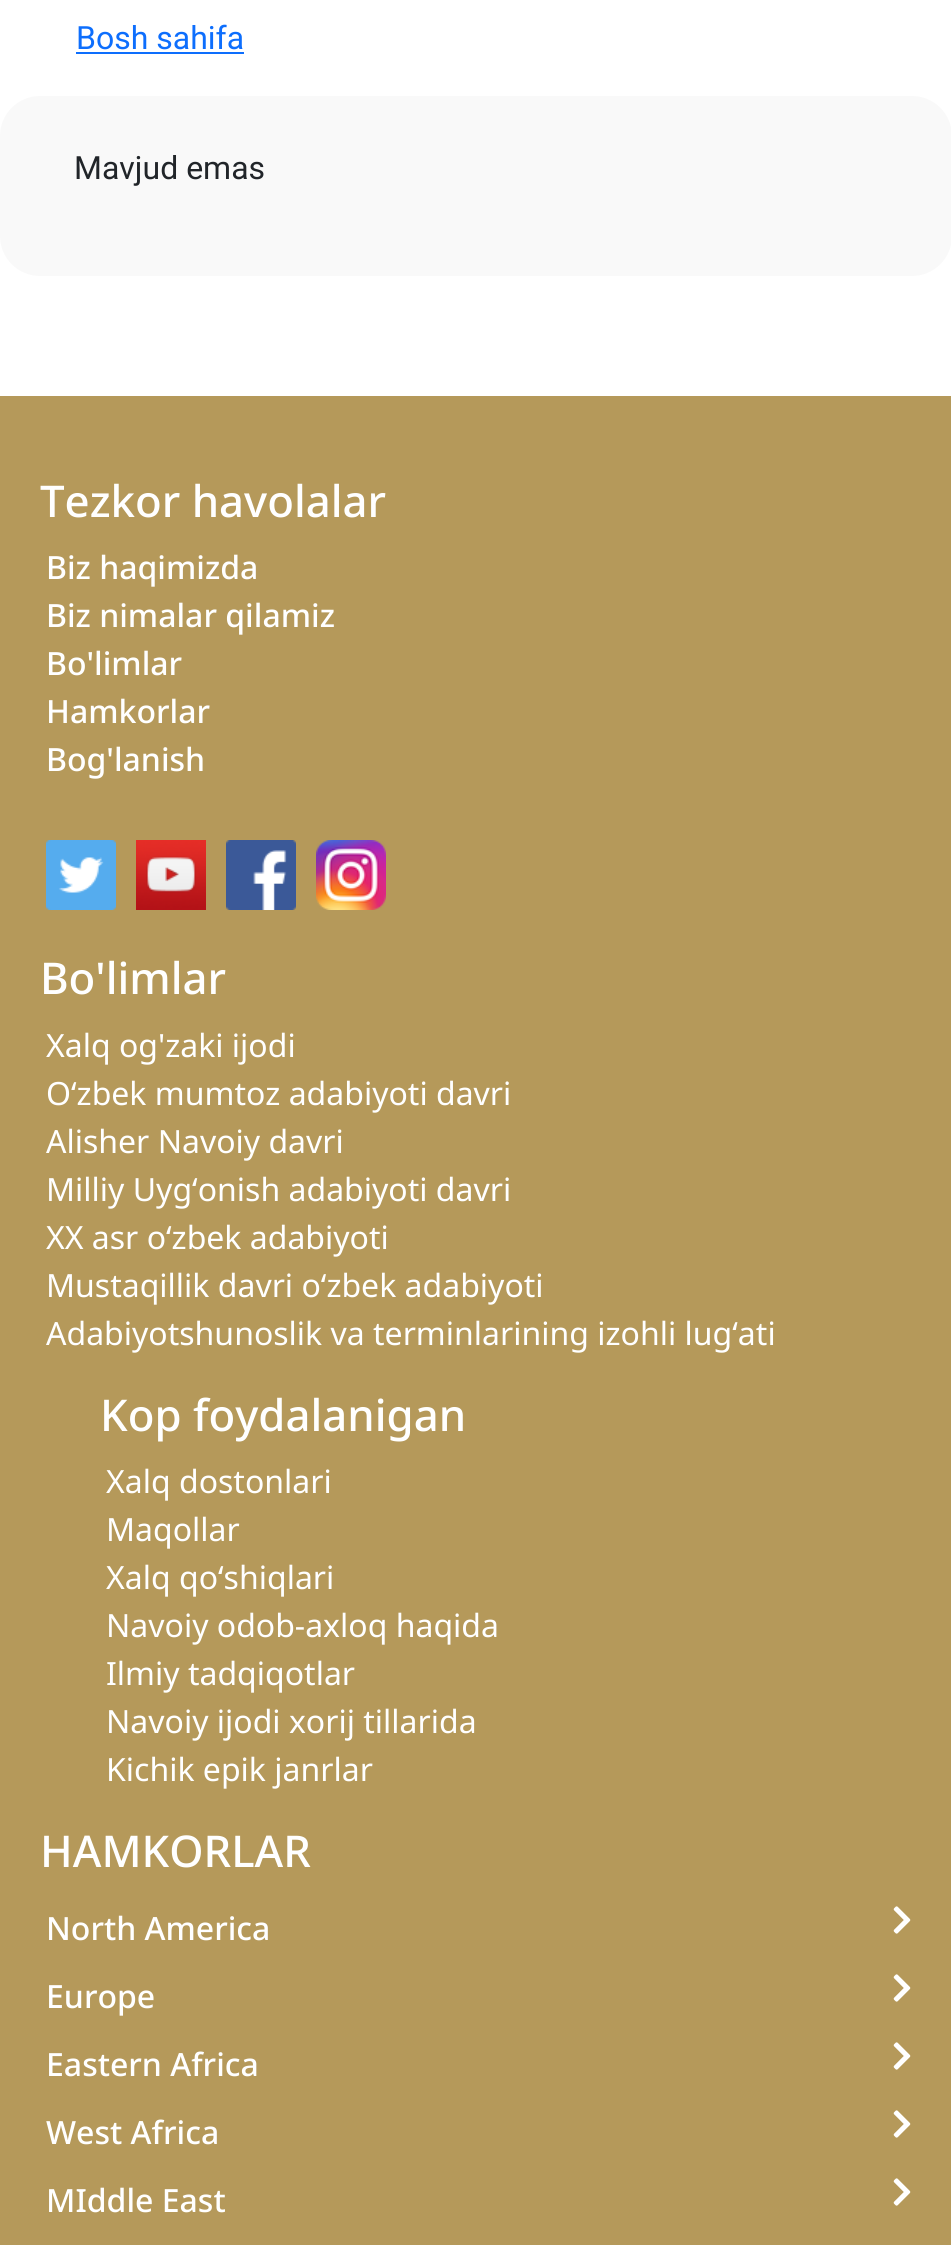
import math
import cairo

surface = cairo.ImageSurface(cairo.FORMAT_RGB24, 951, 2245)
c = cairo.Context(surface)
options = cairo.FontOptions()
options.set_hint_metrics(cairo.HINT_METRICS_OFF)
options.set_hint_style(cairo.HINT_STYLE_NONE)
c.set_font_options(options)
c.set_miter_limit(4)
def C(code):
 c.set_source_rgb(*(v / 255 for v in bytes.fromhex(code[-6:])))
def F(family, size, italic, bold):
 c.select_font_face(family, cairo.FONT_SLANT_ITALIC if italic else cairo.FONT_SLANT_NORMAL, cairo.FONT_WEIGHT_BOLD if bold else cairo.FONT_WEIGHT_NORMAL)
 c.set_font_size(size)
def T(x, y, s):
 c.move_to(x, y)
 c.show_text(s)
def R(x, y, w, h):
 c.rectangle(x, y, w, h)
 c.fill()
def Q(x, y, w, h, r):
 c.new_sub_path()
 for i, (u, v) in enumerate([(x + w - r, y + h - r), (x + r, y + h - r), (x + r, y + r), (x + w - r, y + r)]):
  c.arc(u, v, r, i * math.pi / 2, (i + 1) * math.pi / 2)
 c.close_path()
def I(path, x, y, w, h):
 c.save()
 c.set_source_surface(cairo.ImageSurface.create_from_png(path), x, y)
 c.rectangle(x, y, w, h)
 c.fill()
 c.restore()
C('ffffff')
c.paint()
F('Roboto',32,0,0)
C('0d6efd')
T(76,49,'Bosh sahifa')
R(76,52,168,2)
C('f9f9f9')
Q(0,96,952,180,40)
c.fill()
C('212529')
T(74,179,'Mavjud emas')
C('b5995a')
R(0,396,951,1849)
F('Noto Sans Medium',43.75,0,0)
C('ffffff')
T(40,517,'Tezkor havolalar')
F('Noto Sans Medium',32,0,0)
T(46,579,'Biz haqimizda')
T(46,627,'Biz nimalar qilamiz')
T(46,675,'Bo\'limlar')
T(46,723,'Hamkorlar')
T(46,771,'Bog\'lanish')
I('1.png',46,840,70,70)
I('2.png',136,840,70,70)
I('3.png',226,840,70,70)
I('4.png',316,840,70,70)
F('Noto Sans Medium',43.75,0,0)
T(40,994,'Bo\'limlar')
F('Noto Sans',32,0,0)
T(46,1057,'Xalq og\'zaki ijodi')
T(46,1105,'O‘zbek mumtoz adabiyoti davri')
T(46,1153,'Alisher Navoiy davri')
T(46,1201,'Milliy Uyg‘onish adabiyoti davri')
T(46,1249,'XX asr o‘zbek adabiyoti')
T(46,1297,'Mustaqillik davri o‘zbek adabiyoti')
T(46,1345,'Adabiyotshunoslik va terminlarining izohli lug‘ati')
F('Noto Sans Medium',43.75,0,0)
T(100,1431,'Kop foydalanigan')
F('Noto Sans',32,0,0)
T(106,1493,'Xalq dostonlari')
T(106,1541,'Maqollar')
T(106,1589,'Xalq qo‘shiqlari')
T(106,1637,'Navoiy odob-axloq haqida')
T(106,1685,'Ilmiy tadqiqotlar')
T(106,1733,'Navoiy ijodi xorij tillarida')
T(106,1781,'Kichik epik janrlar')
F('Noto Sans Medium',43.75,0,0)
T(40,1867,'HAMKORLAR')
F('Noto Sans Medium',32,0,0)
T(46,1940,'North America')
I('5.png',893,1906,18,28)
T(46,2008,'Europe')
I('5.png',893,1974,18,28)
T(46,2076,'Eastern Africa')
I('5.png',893,2042,18,28)
T(46,2144,'West Africa')
I('5.png',893,2110,18,28)
T(46,2212,'MIddle East')
I('5.png',893,2178,18,28)
surface.write_to_png('o.png')
